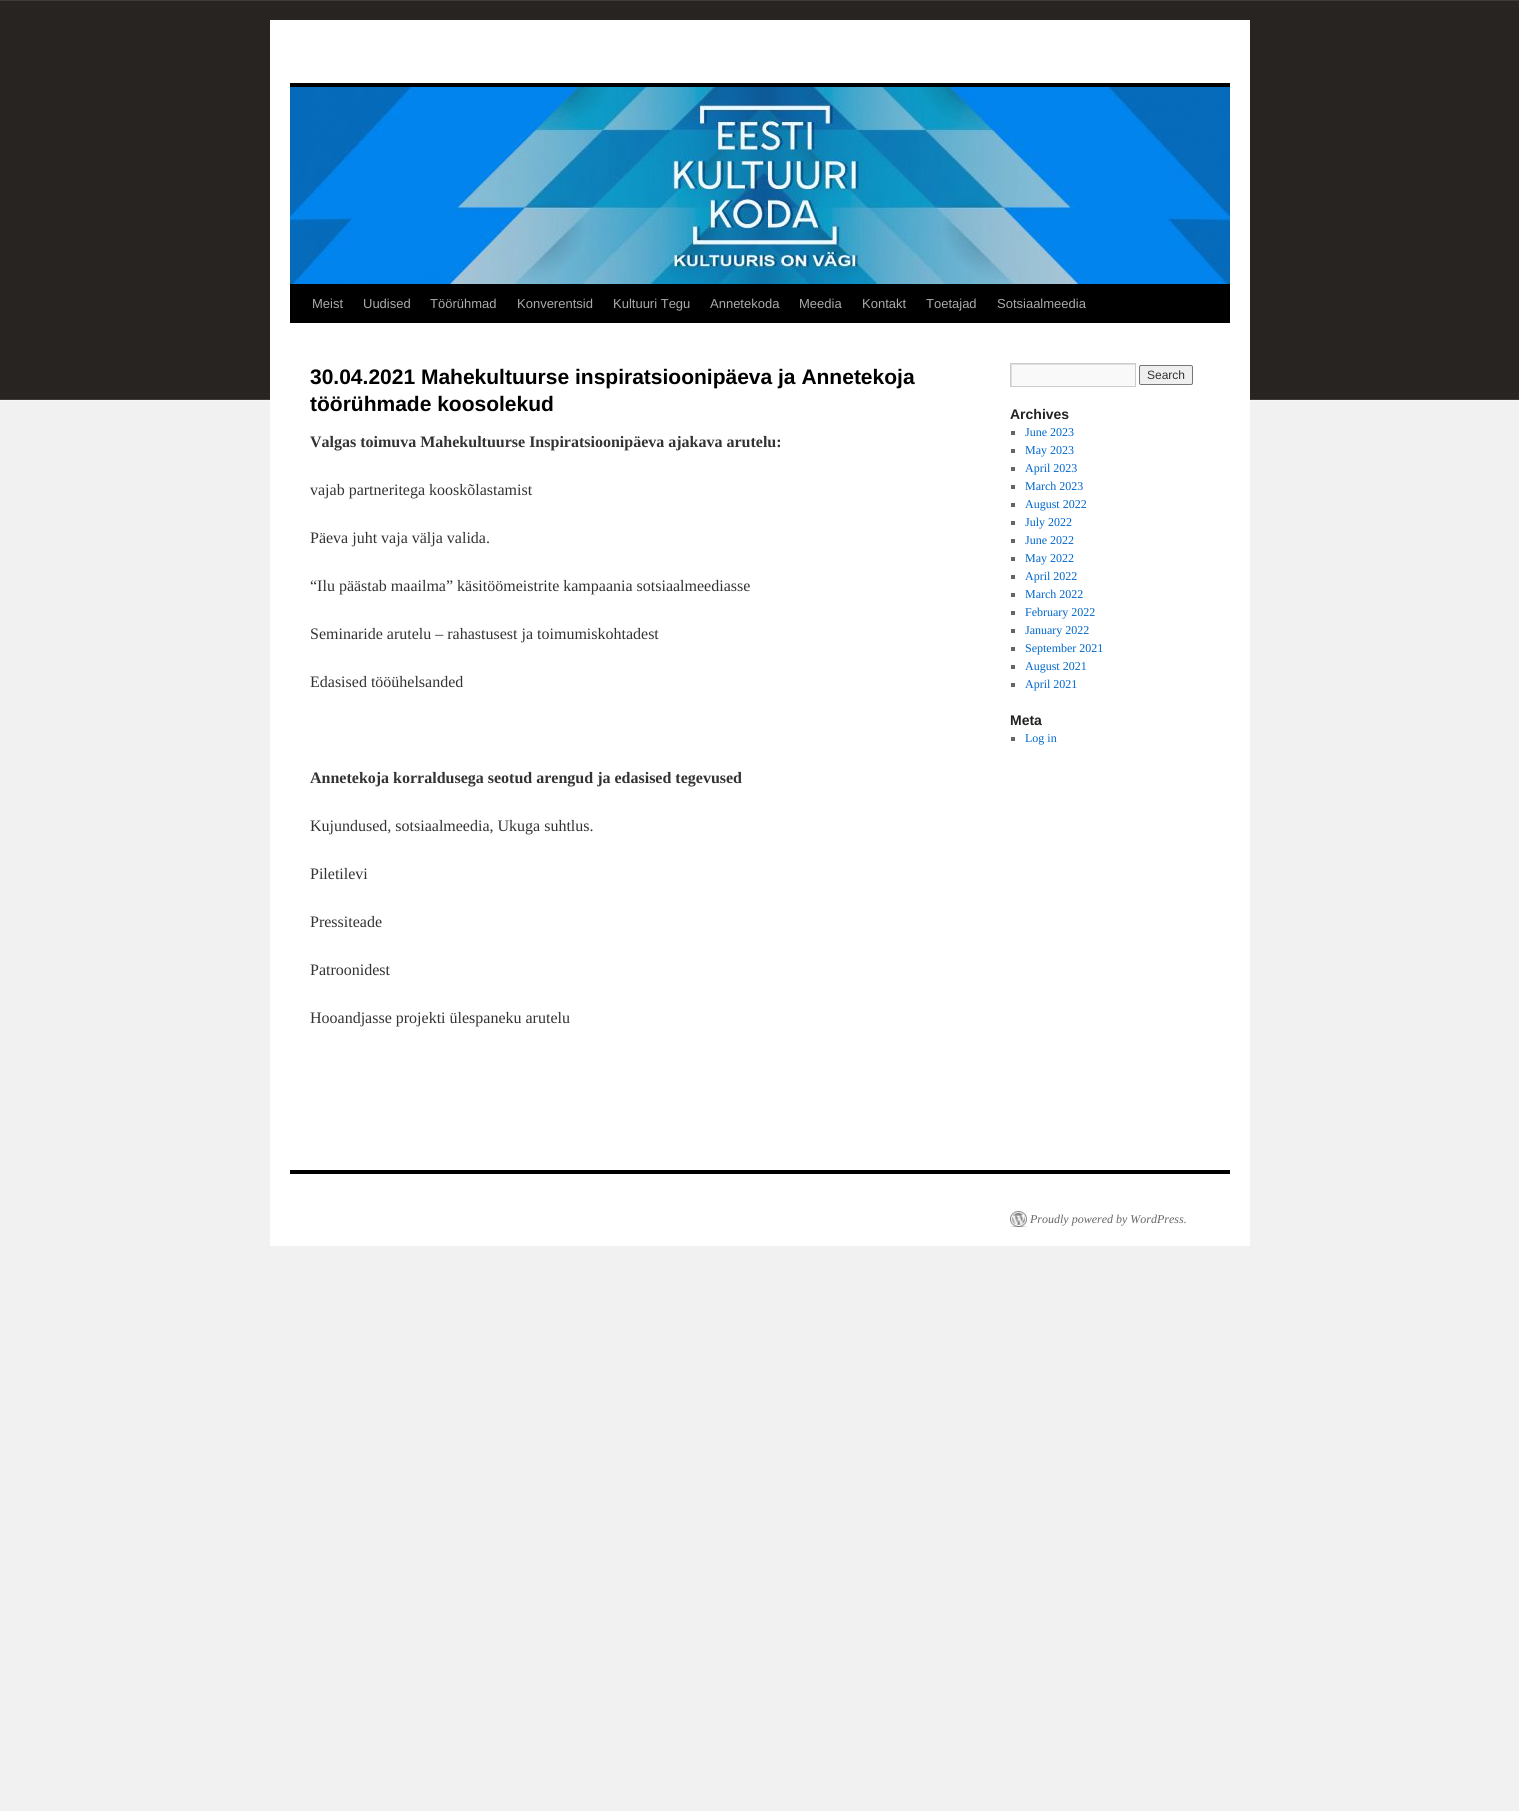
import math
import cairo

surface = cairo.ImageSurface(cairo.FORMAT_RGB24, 1519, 1811)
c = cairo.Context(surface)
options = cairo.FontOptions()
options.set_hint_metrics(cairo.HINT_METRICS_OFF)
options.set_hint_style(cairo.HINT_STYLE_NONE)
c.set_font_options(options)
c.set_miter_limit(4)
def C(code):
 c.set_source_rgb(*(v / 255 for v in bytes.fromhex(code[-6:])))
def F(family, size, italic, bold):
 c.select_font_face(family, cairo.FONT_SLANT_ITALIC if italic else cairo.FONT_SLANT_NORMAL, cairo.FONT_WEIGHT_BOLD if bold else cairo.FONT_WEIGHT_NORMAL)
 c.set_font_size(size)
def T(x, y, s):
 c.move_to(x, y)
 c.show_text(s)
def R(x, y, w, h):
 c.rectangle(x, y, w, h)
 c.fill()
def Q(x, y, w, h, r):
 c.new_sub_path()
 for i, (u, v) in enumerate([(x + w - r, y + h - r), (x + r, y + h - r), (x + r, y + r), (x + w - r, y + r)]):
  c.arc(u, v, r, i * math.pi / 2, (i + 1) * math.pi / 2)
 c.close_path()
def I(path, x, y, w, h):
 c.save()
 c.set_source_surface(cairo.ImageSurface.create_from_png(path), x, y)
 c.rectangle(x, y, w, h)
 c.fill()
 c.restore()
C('f1f1f1')
c.paint()
I('1.png',0,0,1519,401)
C('ffffff')
R(270,20,980,1226)
C('000000')
R(290,83,940,4)
R(290,284,940,39)
I('2.png',290,87,940,197)
F('Liberation Sans',13,0,0)
C('aaaaaa')
T(312,308,'Meist')
T(363,308,'Uudised')
T(430,308,'Töörühmad')
T(517,308,'Konverentsid')
T(613,308,'Kultuuri Tegu')
T(710,308,'Annetekoda')
T(799,308,'Meedia')
T(862,308,'Kontakt')
T(926,308,'Toetajad')
T(997,308,'Sotsiaalmeedia')
F('Liberation Sans',21,0,1)
C('000000')
T(310,384,'30.04.2021 Mahekultuurse inspiratsioonipäeva ja Annetekoja')
T(310,411,'töörühmade koosolekud')
F('Liberation Serif',16,0,1)
C('333333')
T(310,447,'Valgas toimuva Mahekultuurse Inspiratsioonipäeva ajakava arutelu:')
F('Liberation Serif',16,0,0)
T(310,495,'vajab partneritega kooskõlastamist')
T(310,543,'Päeva juht vaja välja valida.')
T(310,591,'“Ilu päästab maailma” käsitöömeistrite kampaania sotsiaalmeediasse')
T(310,639,'Seminaride arutelu – rahastusest ja toimumiskohtadest')
T(310,687,'Edasised tööühelsanded')
F('Liberation Serif',16,0,1)
T(310,783,'Annetekoja korraldusega seotud arengud ja edasised tegevused')
F('Liberation Serif',16,0,0)
T(310,831,'Kujundused, sotsiaalmeedia, Ukuga suhtlus.')
T(310,879,'Piletilevi')
T(310,927,'Pressiteade')
T(310,975,'Patroonidest')
T(310,1023,'Hooandjasse projekti ülespaneku arutelu')
C('f9f9f9')
R(1012,365,123,21)
c.save()
c.rectangle(1011,364,124,22)
c.clip()
C('e0e0e0')
c.set_fill_rule(cairo.FILL_RULE_EVEN_ODD)
c.new_path()
c.move_to(912,265)
c.line_to(1234,265)
c.line_to(1234,485)
c.line_to(912,485)
c.close_path()
c.move_to(1012,365)
c.line_to(1136,365)
c.line_to(1136,387)
c.line_to(1012,387)
c.close_path()
c.fill()
c.restore()
c.rectangle(1010.5,363.5,125,23)
C('cccccc')
c.set_line_width(1)
c.stroke()
C('efefef')
Q(1139.5,365.5,53,19,1.5)
c.fill_preserve()
C('767676')
c.stroke()
F('Liberation Sans',12,0,0)
C('333333')
T(1147,379,'Search')
F('Liberation Sans',14,0,1)
C('222222')
T(1010,419,'Archives')
C('666666')
R(1011,431,4,4)
F('Liberation Serif',12,0,0)
C('0066cc')
T(1025,436,'June 2023')
C('666666')
R(1011,449,4,4)
C('0066cc')
T(1025,454,'May 2023')
C('666666')
R(1011,467,4,4)
C('0066cc')
T(1025,472,'April 2023')
C('666666')
R(1011,485,4,4)
C('0066cc')
T(1025,490,'March 2023')
C('666666')
R(1011,503,4,4)
C('0066cc')
T(1025,508,'August 2022')
C('666666')
R(1011,521,4,4)
C('0066cc')
T(1025,526,'July 2022')
C('666666')
R(1011,539,4,4)
C('0066cc')
T(1025,544,'June 2022')
C('666666')
R(1011,557,4,4)
C('0066cc')
T(1025,562,'May 2022')
C('666666')
R(1011,575,4,4)
C('0066cc')
T(1025,580,'April 2022')
C('666666')
R(1011,593,4,4)
C('0066cc')
T(1025,598,'March 2022')
C('666666')
R(1011,611,4,4)
C('0066cc')
T(1025,616,'February 2022')
C('666666')
R(1011,629,4,4)
C('0066cc')
T(1025,634,'January 2022')
C('666666')
R(1011,647,4,4)
C('0066cc')
T(1025,652,'September 2021')
C('666666')
R(1011,665,4,4)
C('0066cc')
T(1025,670,'August 2021')
C('666666')
R(1011,683,4,4)
C('0066cc')
T(1025,688,'April 2021')
F('Liberation Sans',14,0,1)
C('222222')
T(1010,725,'Meta')
C('666666')
R(1011,737,4,4)
F('Liberation Serif',12,0,0)
C('0066cc')
T(1025,742,'Log in')
C('000000')
R(290,1170,940,4)
I('3.png',1010,1211,17,16)
F('Liberation Serif',12,1,0)
C('666666')
T(1030,1223,'Proudly powered by WordPress.')
surface.write_to_png('o.png')
